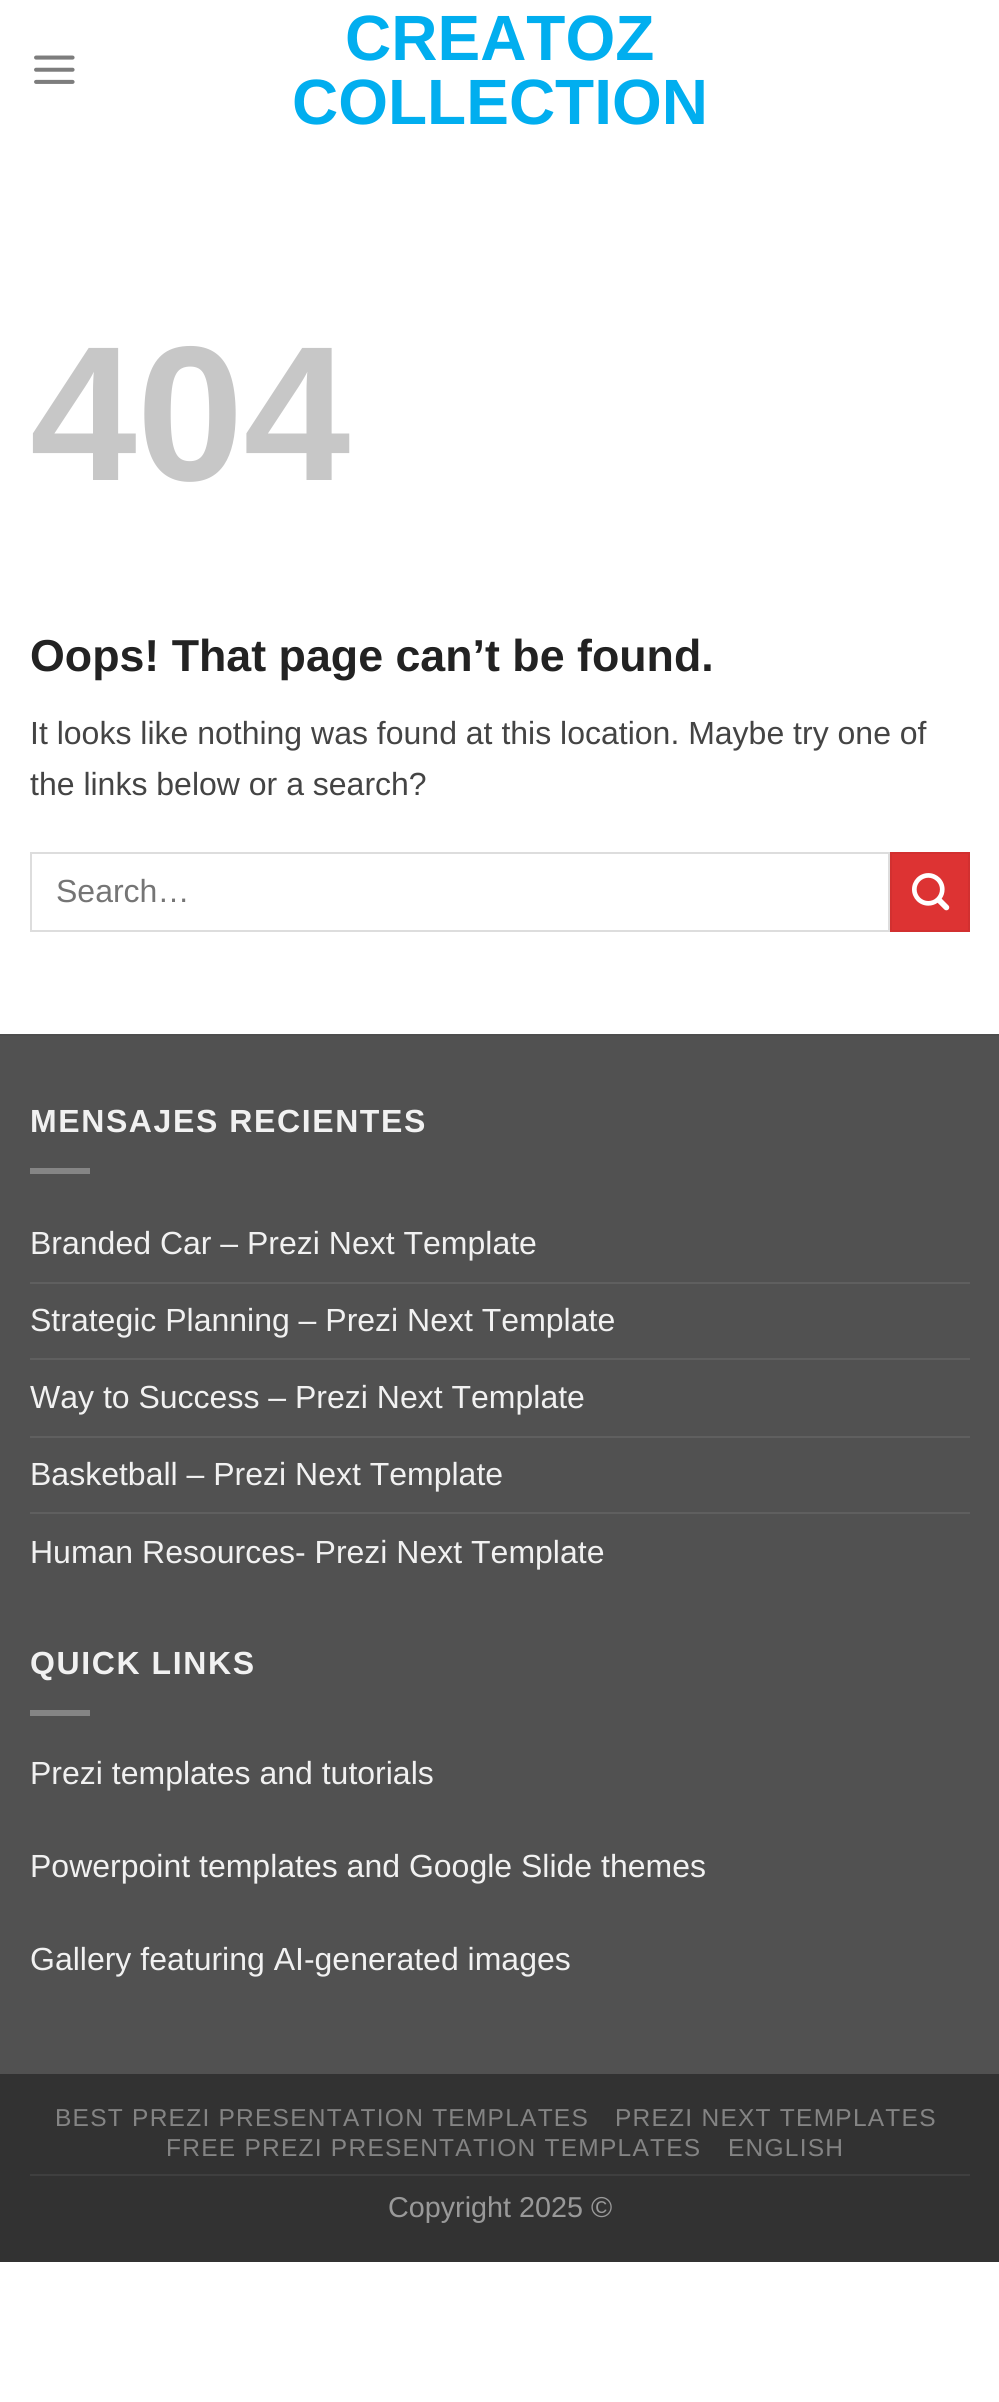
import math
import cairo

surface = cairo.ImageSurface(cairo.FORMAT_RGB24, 999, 2402)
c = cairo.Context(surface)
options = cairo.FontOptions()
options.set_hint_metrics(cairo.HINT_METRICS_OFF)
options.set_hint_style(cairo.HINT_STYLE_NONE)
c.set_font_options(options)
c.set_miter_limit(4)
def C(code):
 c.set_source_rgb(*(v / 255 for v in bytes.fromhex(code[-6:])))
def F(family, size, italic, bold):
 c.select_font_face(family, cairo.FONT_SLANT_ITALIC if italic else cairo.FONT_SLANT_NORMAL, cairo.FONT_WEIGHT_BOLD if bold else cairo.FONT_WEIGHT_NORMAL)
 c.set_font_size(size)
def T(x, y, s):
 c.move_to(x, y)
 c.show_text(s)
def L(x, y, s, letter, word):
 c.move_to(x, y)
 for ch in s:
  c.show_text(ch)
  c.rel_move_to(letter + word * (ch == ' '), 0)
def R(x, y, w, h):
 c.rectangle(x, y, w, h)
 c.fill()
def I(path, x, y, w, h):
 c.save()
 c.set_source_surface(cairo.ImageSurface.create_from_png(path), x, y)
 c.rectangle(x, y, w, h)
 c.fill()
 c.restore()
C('ffffff')
c.paint()
I('1.png',34,55,41,29)
F('Liberation Sans',64,0,1)
C('01aeef')
T(345,60,'CREATOZ')
T(292,124,'COLLECTION')
F('Liberation Sans',192,0,1)
C('c7c7c7')
T(30,480,'404')
F('Liberation Sans',44.75,0,1)
C('222222')
T(30,671,'Oops! That page can’t be found.')
F('Liberation Sans',32,0,0)
C('444444')
T(30,744,'It looks like nothing was found at this location. Maybe try one of')
T(30,795,'the links below or a search?')
c.rectangle(31,853,858,78)
C('dddddd')
c.stroke()
C('757575')
T(56,902,'Search…')
C('dd3333')
c.rectangle(891,853,78,78)
c.fill_preserve()
C('d23030')
c.stroke()
I('2.png',912,873,38,38)
C('515151')
R(0,1036,999,1038)
C('4d4d4d')
R(0,1034,999,2)
F('Liberation Sans',32,0,1)
C('f1f1f1')
L(30,1132,'MENSAJES RECIENTES',1.6,0)
C('858585')
R(30,1168,60,6)
F('Liberation Sans',32,0,0)
C('f1f1f1')
T(30,1254,'Branded Car – Prezi Next Template')
C('5f5f5f')
R(30,1282,940,2)
C('f1f1f1')
T(30,1331,'Strategic Planning – Prezi Next Template')
C('5f5f5f')
R(30,1358,940,2)
C('f1f1f1')
T(30,1408,'Way to Success – Prezi Next Template')
C('5f5f5f')
R(30,1436,940,2)
C('f1f1f1')
T(30,1485,'Basketball – Prezi Next Template')
C('5f5f5f')
R(30,1512,940,2)
C('f1f1f1')
T(30,1563,'Human Resources- Prezi Next Template')
F('Liberation Sans',32,0,1)
L(30,1674,'QUICK LINKS',1.6,0)
C('858585')
R(30,1710,60,6)
F('Liberation Sans',32,0,0)
C('f1f1f1')
T(30,1784,'Prezi templates and tutorials')
T(30,1877,'Powerpoint templates and Google Slide themes')
T(30,1970,'Gallery featuring AI-generated images')
C('323232')
R(0,2074,999,188)
C('3f3f3f')
R(30,2174,940,2)
F('Liberation Sans',24.5,0,0)
C('848484')
L(55,2126,'BEST PREZI PRESENTATION TEMPLATES',1.25,0)
L(615,2126,'PREZI NEXT TEMPLATES',1.25,0)
L(166,2156,'FREE PREZI PRESENTATION TEMPLATES',1.25,0)
L(728,2156,'ENGLISH',1.25,0)
F('Liberation Sans',28.75,0,0)
C('999999')
T(388,2217,'Copyright 2025 ©')
surface.write_to_png('o.png')
